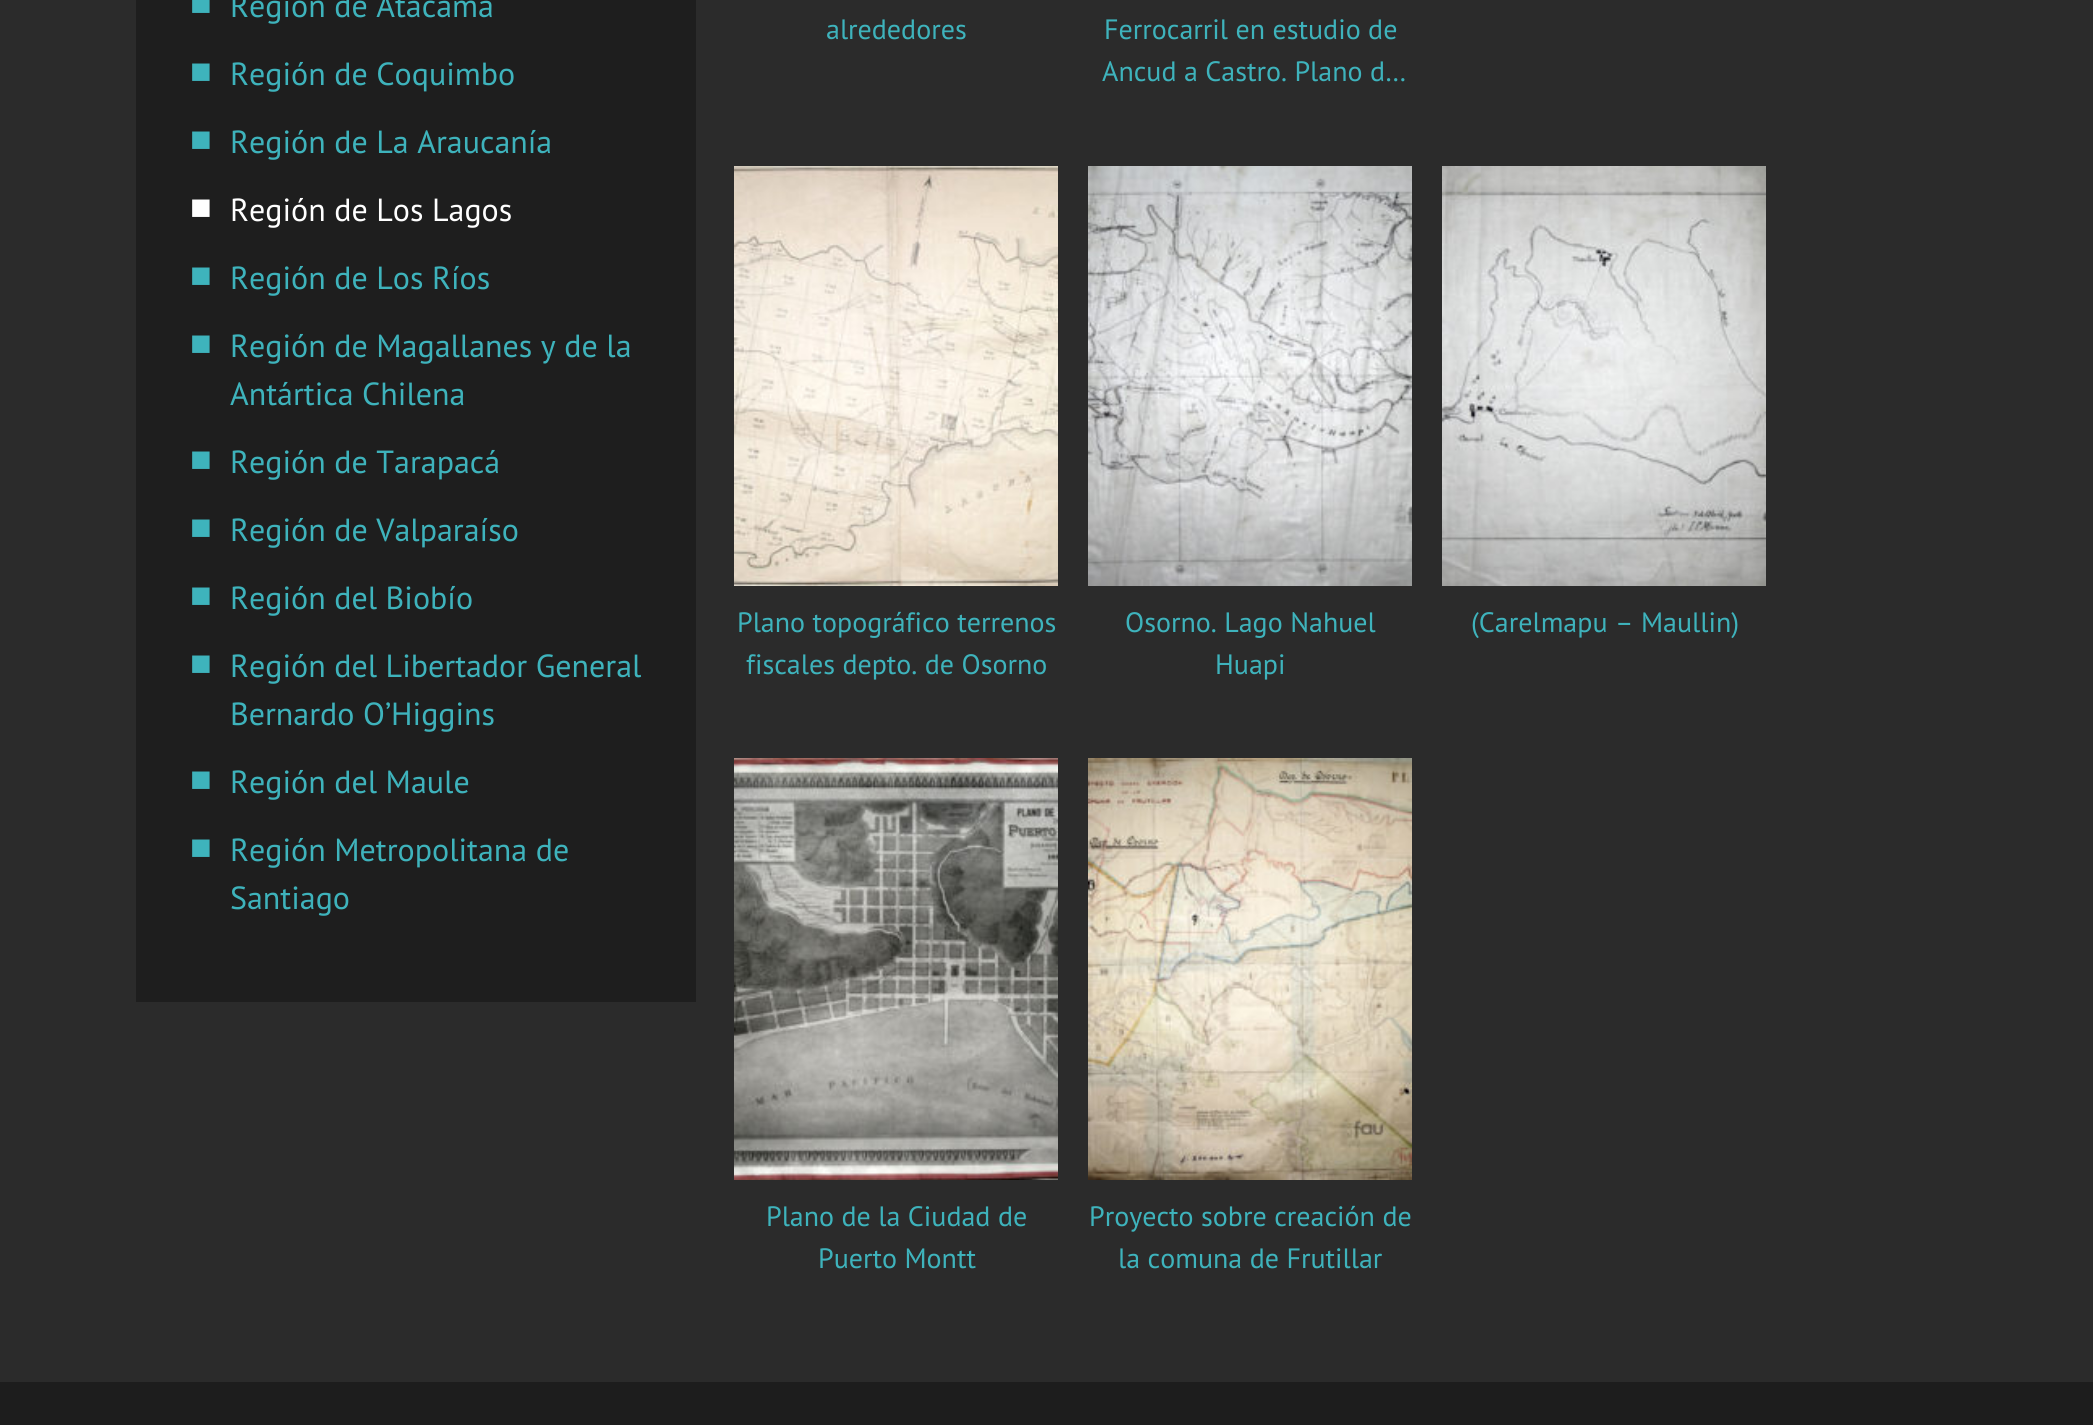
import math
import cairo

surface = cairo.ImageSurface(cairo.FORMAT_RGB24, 2093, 1425)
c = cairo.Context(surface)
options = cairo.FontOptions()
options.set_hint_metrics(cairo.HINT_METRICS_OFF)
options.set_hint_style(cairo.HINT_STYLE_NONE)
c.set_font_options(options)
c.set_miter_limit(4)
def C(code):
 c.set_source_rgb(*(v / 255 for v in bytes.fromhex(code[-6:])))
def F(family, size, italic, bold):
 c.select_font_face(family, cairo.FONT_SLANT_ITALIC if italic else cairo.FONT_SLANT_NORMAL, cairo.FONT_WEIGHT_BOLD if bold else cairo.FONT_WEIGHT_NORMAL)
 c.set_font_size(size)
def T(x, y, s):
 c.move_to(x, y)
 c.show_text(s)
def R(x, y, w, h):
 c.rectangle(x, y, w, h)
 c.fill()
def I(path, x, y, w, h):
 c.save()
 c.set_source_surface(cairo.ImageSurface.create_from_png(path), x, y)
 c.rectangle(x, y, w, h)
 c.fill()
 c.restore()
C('2b2b2b')
c.paint()
C('1e1e1e')
R(136,0,560,1002)
F('Liberation Sans',36,0,0)
C('3eb3bc')
T(190,15,'■')
F('PT Sans',32,0,0)
T(230,17,'Región de Atacama')
F('Liberation Sans',36,0,0)
T(190,83,'■')
F('PT Sans',32,0,0)
T(230,85,'Región de Coquimbo')
F('Liberation Sans',36,0,0)
T(190,151,'■')
F('PT Sans',32,0,0)
T(230,153,'Región de La Araucanía')
F('Liberation Sans',36,0,0)
C('ffffff')
T(190,219,'■')
F('PT Sans',32,0,0)
T(230,221,'Región de Los Lagos')
F('Liberation Sans',36,0,0)
C('3eb3bc')
T(190,287,'■')
F('PT Sans',32,0,0)
T(230,289,'Región de Los Ríos')
F('Liberation Sans',36,0,0)
T(190,355,'■')
F('PT Sans',32,0,0)
T(230,357,'Región de Magallanes y de la')
T(230,405,'Antártica Chilena')
F('Liberation Sans',36,0,0)
T(190,471,'■')
F('PT Sans',32,0,0)
T(230,473,'Región de Tarapacá')
F('Liberation Sans',36,0,0)
T(190,539,'■')
F('PT Sans',32,0,0)
T(230,541,'Región de Valparaíso')
F('Liberation Sans',36,0,0)
T(190,607,'■')
F('PT Sans',32,0,0)
T(230,609,'Región del Biobío')
F('Liberation Sans',36,0,0)
T(190,675,'■')
F('PT Sans',32,0,0)
T(230,677,'Región del Libertador General')
T(230,725,'Bernardo O’Higgins')
F('Liberation Sans',36,0,0)
T(190,791,'■')
F('PT Sans',32,0,0)
T(230,793,'Región del Maule')
F('Liberation Sans',36,0,0)
T(190,859,'■')
F('PT Sans',32,0,0)
T(230,861,'Región Metropolitana de')
T(230,909,'Santiago')
F('PT Sans',28,0,0)
T(826,39,'alrededores')
T(1104,39,'Ferrocarril en estudio de')
T(1102,81,'Ancud a Castro. Plano d…')
I('1.png',734,166,324,420)
T(737,632,'Plano topográfico terrenos')
T(746,674,'fiscales depto. de Osorno')
I('2.png',1088,166,324,420)
T(1125,632,'Osorno. Lago Nahuel')
T(1215,674,'Huapi')
I('3.png',1442,166,324,420)
T(1471,632,'(Carelmapu – Maullin)')
I('4.png',734,758,324,422)
T(766,1226,'Plano de la Ciudad de')
T(818,1268,'Puerto Montt')
I('5.png',1088,758,324,422)
T(1089,1226,'Proyecto sobre creación de')
T(1118,1268,'la comuna de Frutillar')
C('1d1d1d')
R(0,1382,2093,43)
surface.write_to_png('o.png')
